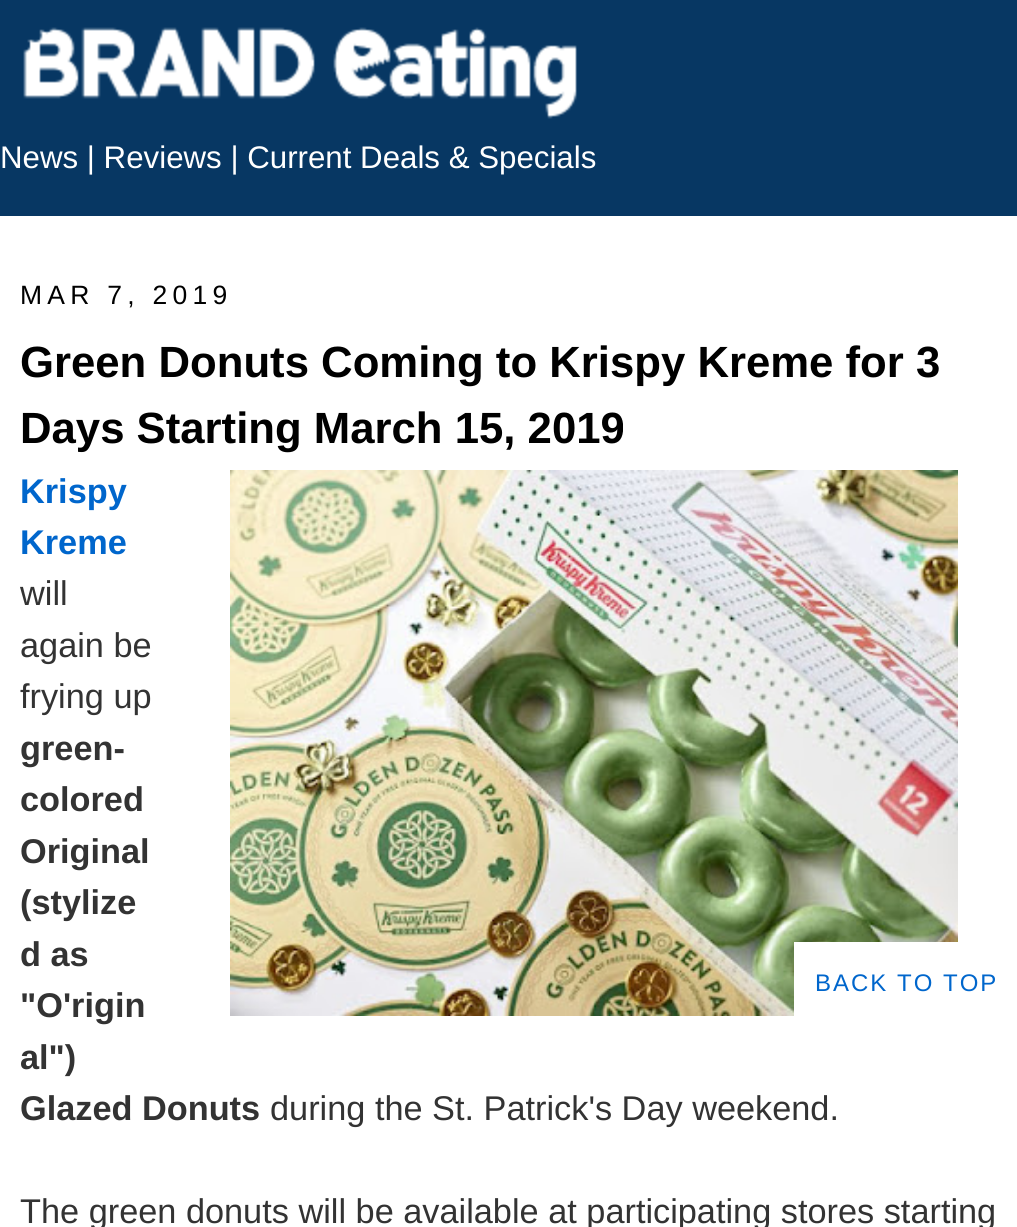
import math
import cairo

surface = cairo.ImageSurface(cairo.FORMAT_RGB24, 1017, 1227)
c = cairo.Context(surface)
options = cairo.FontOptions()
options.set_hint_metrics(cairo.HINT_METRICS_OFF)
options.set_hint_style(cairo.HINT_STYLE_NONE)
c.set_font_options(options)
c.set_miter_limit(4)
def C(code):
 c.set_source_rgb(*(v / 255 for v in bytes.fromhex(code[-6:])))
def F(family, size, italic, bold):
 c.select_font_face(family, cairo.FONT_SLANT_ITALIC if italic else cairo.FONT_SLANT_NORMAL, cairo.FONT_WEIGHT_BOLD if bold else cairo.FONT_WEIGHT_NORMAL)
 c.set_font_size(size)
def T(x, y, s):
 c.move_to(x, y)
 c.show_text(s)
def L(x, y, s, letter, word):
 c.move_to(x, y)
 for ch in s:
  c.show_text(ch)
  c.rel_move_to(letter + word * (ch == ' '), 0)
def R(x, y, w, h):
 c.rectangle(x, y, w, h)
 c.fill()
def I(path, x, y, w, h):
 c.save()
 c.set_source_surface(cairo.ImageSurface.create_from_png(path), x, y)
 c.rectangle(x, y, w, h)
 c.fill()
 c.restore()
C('ffffff')
c.paint()
C('073763')
R(0,0,1017,216)
I('1.png',23,27,554,92)
F('Liberation Sans',31.25,0,0)
C('ffffff')
T(0,168,'News | Reviews | Current Deals & Specials')
F('Liberation Sans',26.5,0,0)
C('000000')
L(20,304,'MAR 7, 2019',5.25,0)
F('Liberation Sans',43.7,0,1)
T(20,377,'Green Donuts Coming to Krispy Kreme for 3')
T(20,443,'Days Starting March 15, 2019')
F('Liberation Sans',34.3,0,1)
C('0066cc')
T(20,503,'Krispy')
I('2.png',230,470,728,546)
T(20,554,'Kreme')
F('Liberation Sans',34.3,0,0)
C('333333')
T(20,605,'will')
T(20,657,'again be')
T(20,708,'frying up')
F('Liberation Sans',34.3,0,1)
T(20,760,'green-')
T(20,811,'colored')
T(20,863,'Original')
T(20,914,'(stylize')
T(20,966,'d as')
T(20,1017,'"O\'rigin')
T(20,1069,'al")')
T(20,1120,'Glazed Donuts')
F('Liberation Sans',34.3,0,0)
T(270,1120,'during the St. Patrick\'s Day weekend.')
T(20,1223,'The green donuts will be available at participating stores starting')
C('ffffff')
R(794,942,164,74)
F('Liberation Sans',24,0,0)
C('0066cc')
L(815,991,'BACK TO TOP',2,0)
surface.write_to_png('o.png')
